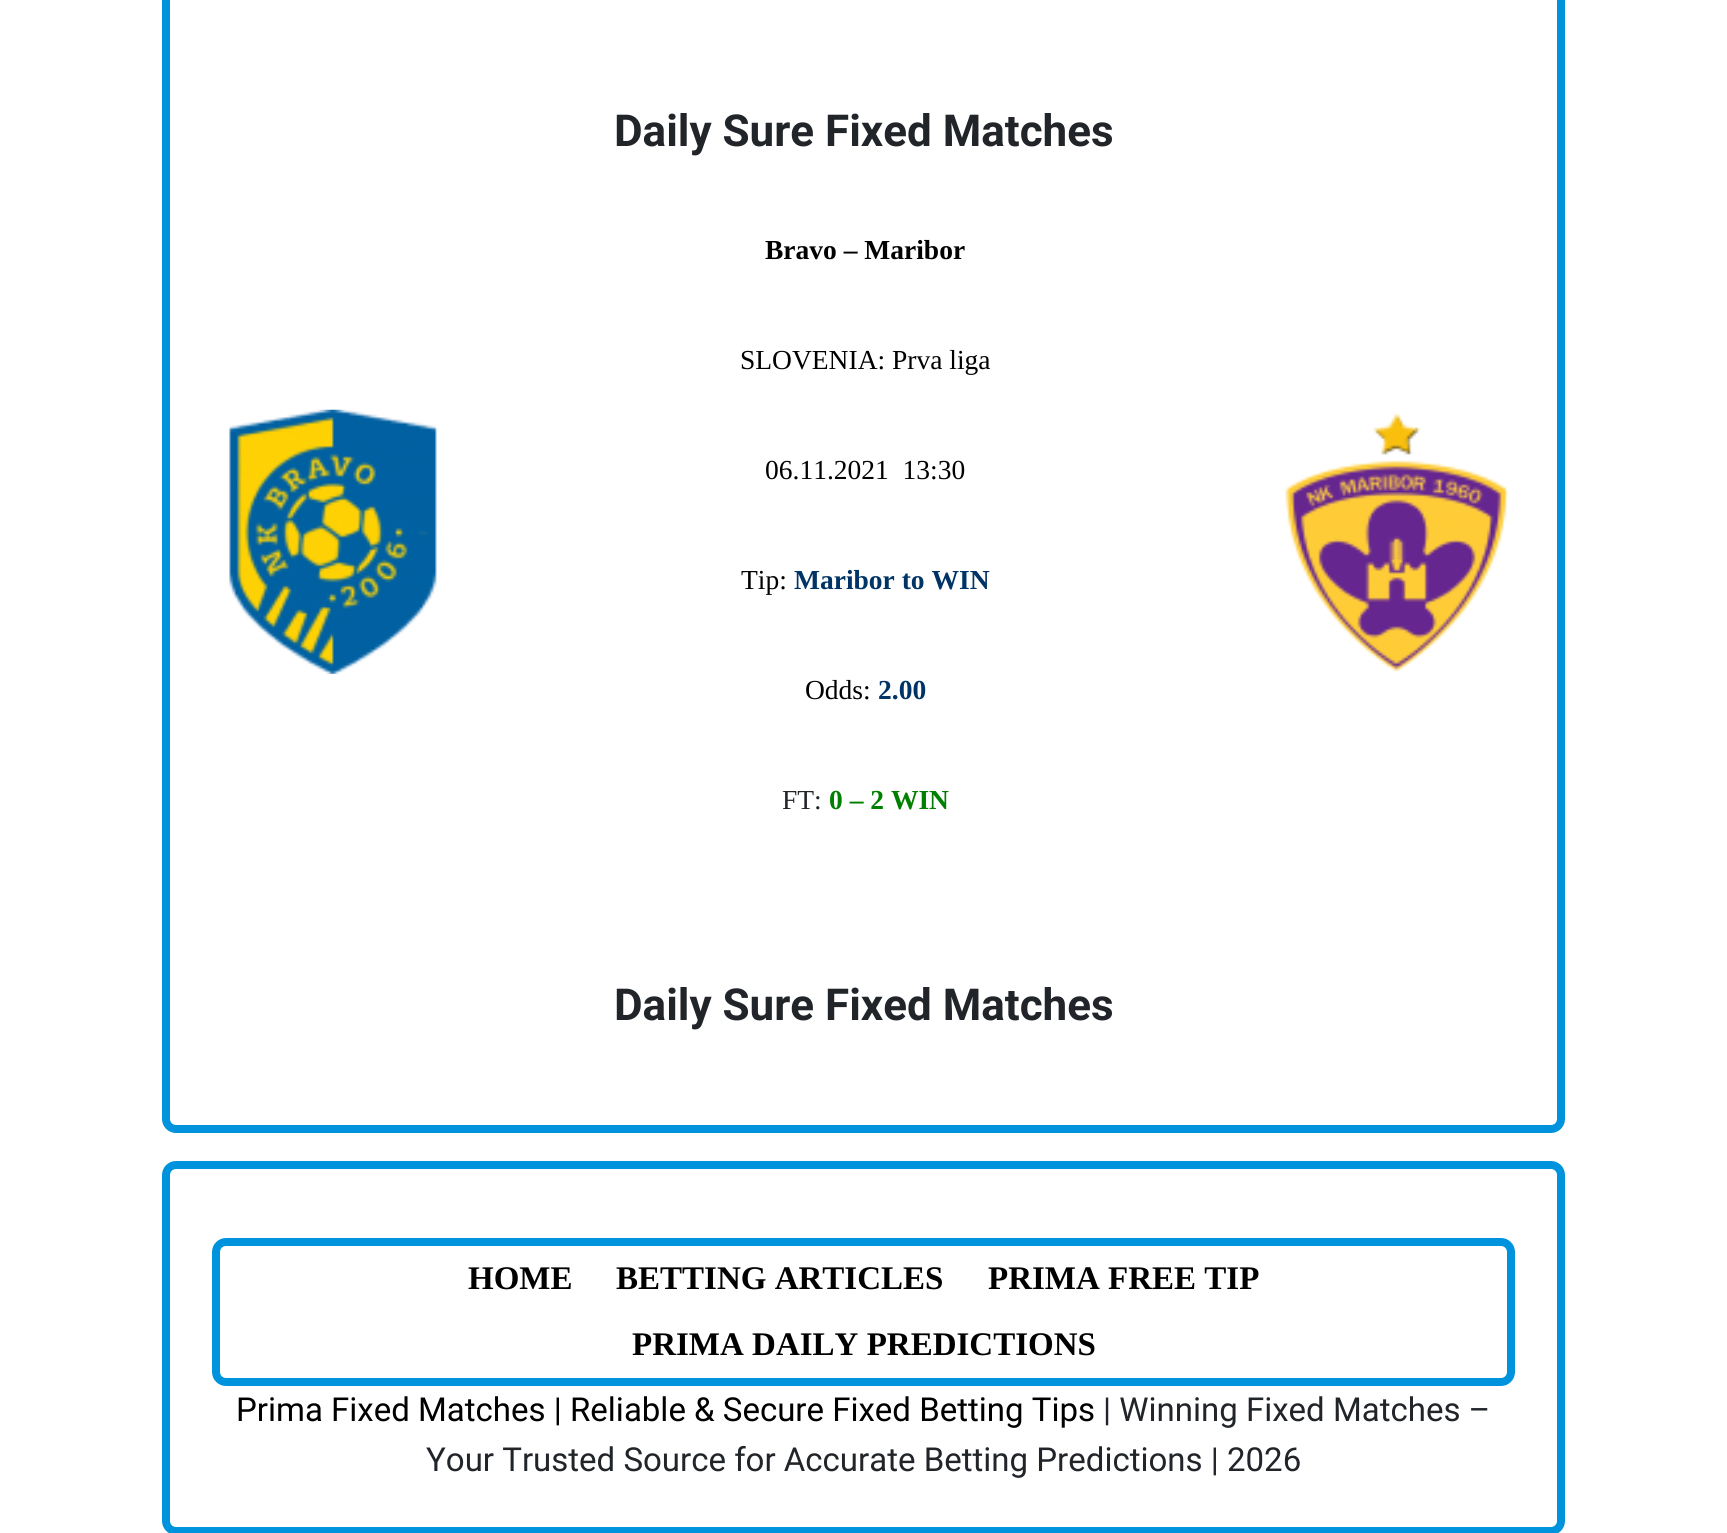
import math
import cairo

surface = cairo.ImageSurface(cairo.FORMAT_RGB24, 1727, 1533)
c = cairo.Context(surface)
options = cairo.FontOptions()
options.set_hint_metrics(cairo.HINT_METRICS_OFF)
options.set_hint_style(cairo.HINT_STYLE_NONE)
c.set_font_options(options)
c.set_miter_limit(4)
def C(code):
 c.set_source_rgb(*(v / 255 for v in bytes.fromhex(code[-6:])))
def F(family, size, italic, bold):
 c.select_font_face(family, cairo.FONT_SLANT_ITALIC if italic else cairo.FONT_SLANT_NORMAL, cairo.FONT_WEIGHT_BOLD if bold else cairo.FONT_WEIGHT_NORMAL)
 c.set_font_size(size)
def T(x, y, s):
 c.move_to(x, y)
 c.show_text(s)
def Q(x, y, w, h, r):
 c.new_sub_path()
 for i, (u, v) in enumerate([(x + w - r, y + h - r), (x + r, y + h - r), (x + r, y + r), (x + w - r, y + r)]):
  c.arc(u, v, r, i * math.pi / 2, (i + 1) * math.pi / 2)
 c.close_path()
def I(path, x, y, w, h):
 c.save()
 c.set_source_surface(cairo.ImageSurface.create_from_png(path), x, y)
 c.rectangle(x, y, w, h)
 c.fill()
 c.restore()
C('ffffff')
c.paint()
Q(166,-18,1395,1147,10)
C('0093dd')
c.set_line_width(8)
c.stroke()
F('Roboto',44,0,1)
C('212529')
T(614,146,'Daily Sure Fixed Matches')
I('1.png',229,409,208,265)
F('Liberation Serif',27.5,0,1)
C('000000')
T(765,259,'Bravo – Maribor')
F('Liberation Serif',27.5,0,0)
T(740,369,'SLOVENIA: Prva liga')
T(765,479,'06.11.2021  13:30')
T(741,589,'Tip:')
F('Liberation Serif',27.5,0,1)
C('003366')
T(794,589,'Maribor to WIN')
F('Liberation Serif',27.5,0,0)
C('000000')
T(805,699,'Odds:')
F('Liberation Serif',27.5,0,1)
C('003366')
T(878,699,'2.00')
F('Liberation Serif',27.5,0,0)
C('212529')
T(782,809,'FT:')
F('Liberation Serif',27.5,0,1)
C('008000')
T(829,809,'0 – 2 WIN')
I('2.png',1285,412,224,259)
F('Roboto',44,0,1)
C('212529')
T(614,1020,'Daily Sure Fixed Matches')
Q(166,1165,1395,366,10)
C('0093dd')
c.stroke()
Q(216,1242,1295,140,10)
c.stroke()
F('Liberation Serif',33,0,1)
C('000000')
T(468,1289,'HOME')
T(616,1289,'BETTING ARTICLES')
T(988,1289,'PRIMA FREE TIP')
T(632,1355,'PRIMA DAILY PREDICTIONS')
F('Roboto',33,0,0)
T(236,1421,'Prima Fixed Matches | Reliable & Secure Fixed Betting Tips')
C('212529')
T(1103,1421,'| Winning Fixed Matches –')
T(426,1471,'Your Trusted Source for Accurate Betting Predictions | 2026')
surface.write_to_png('o.png')
